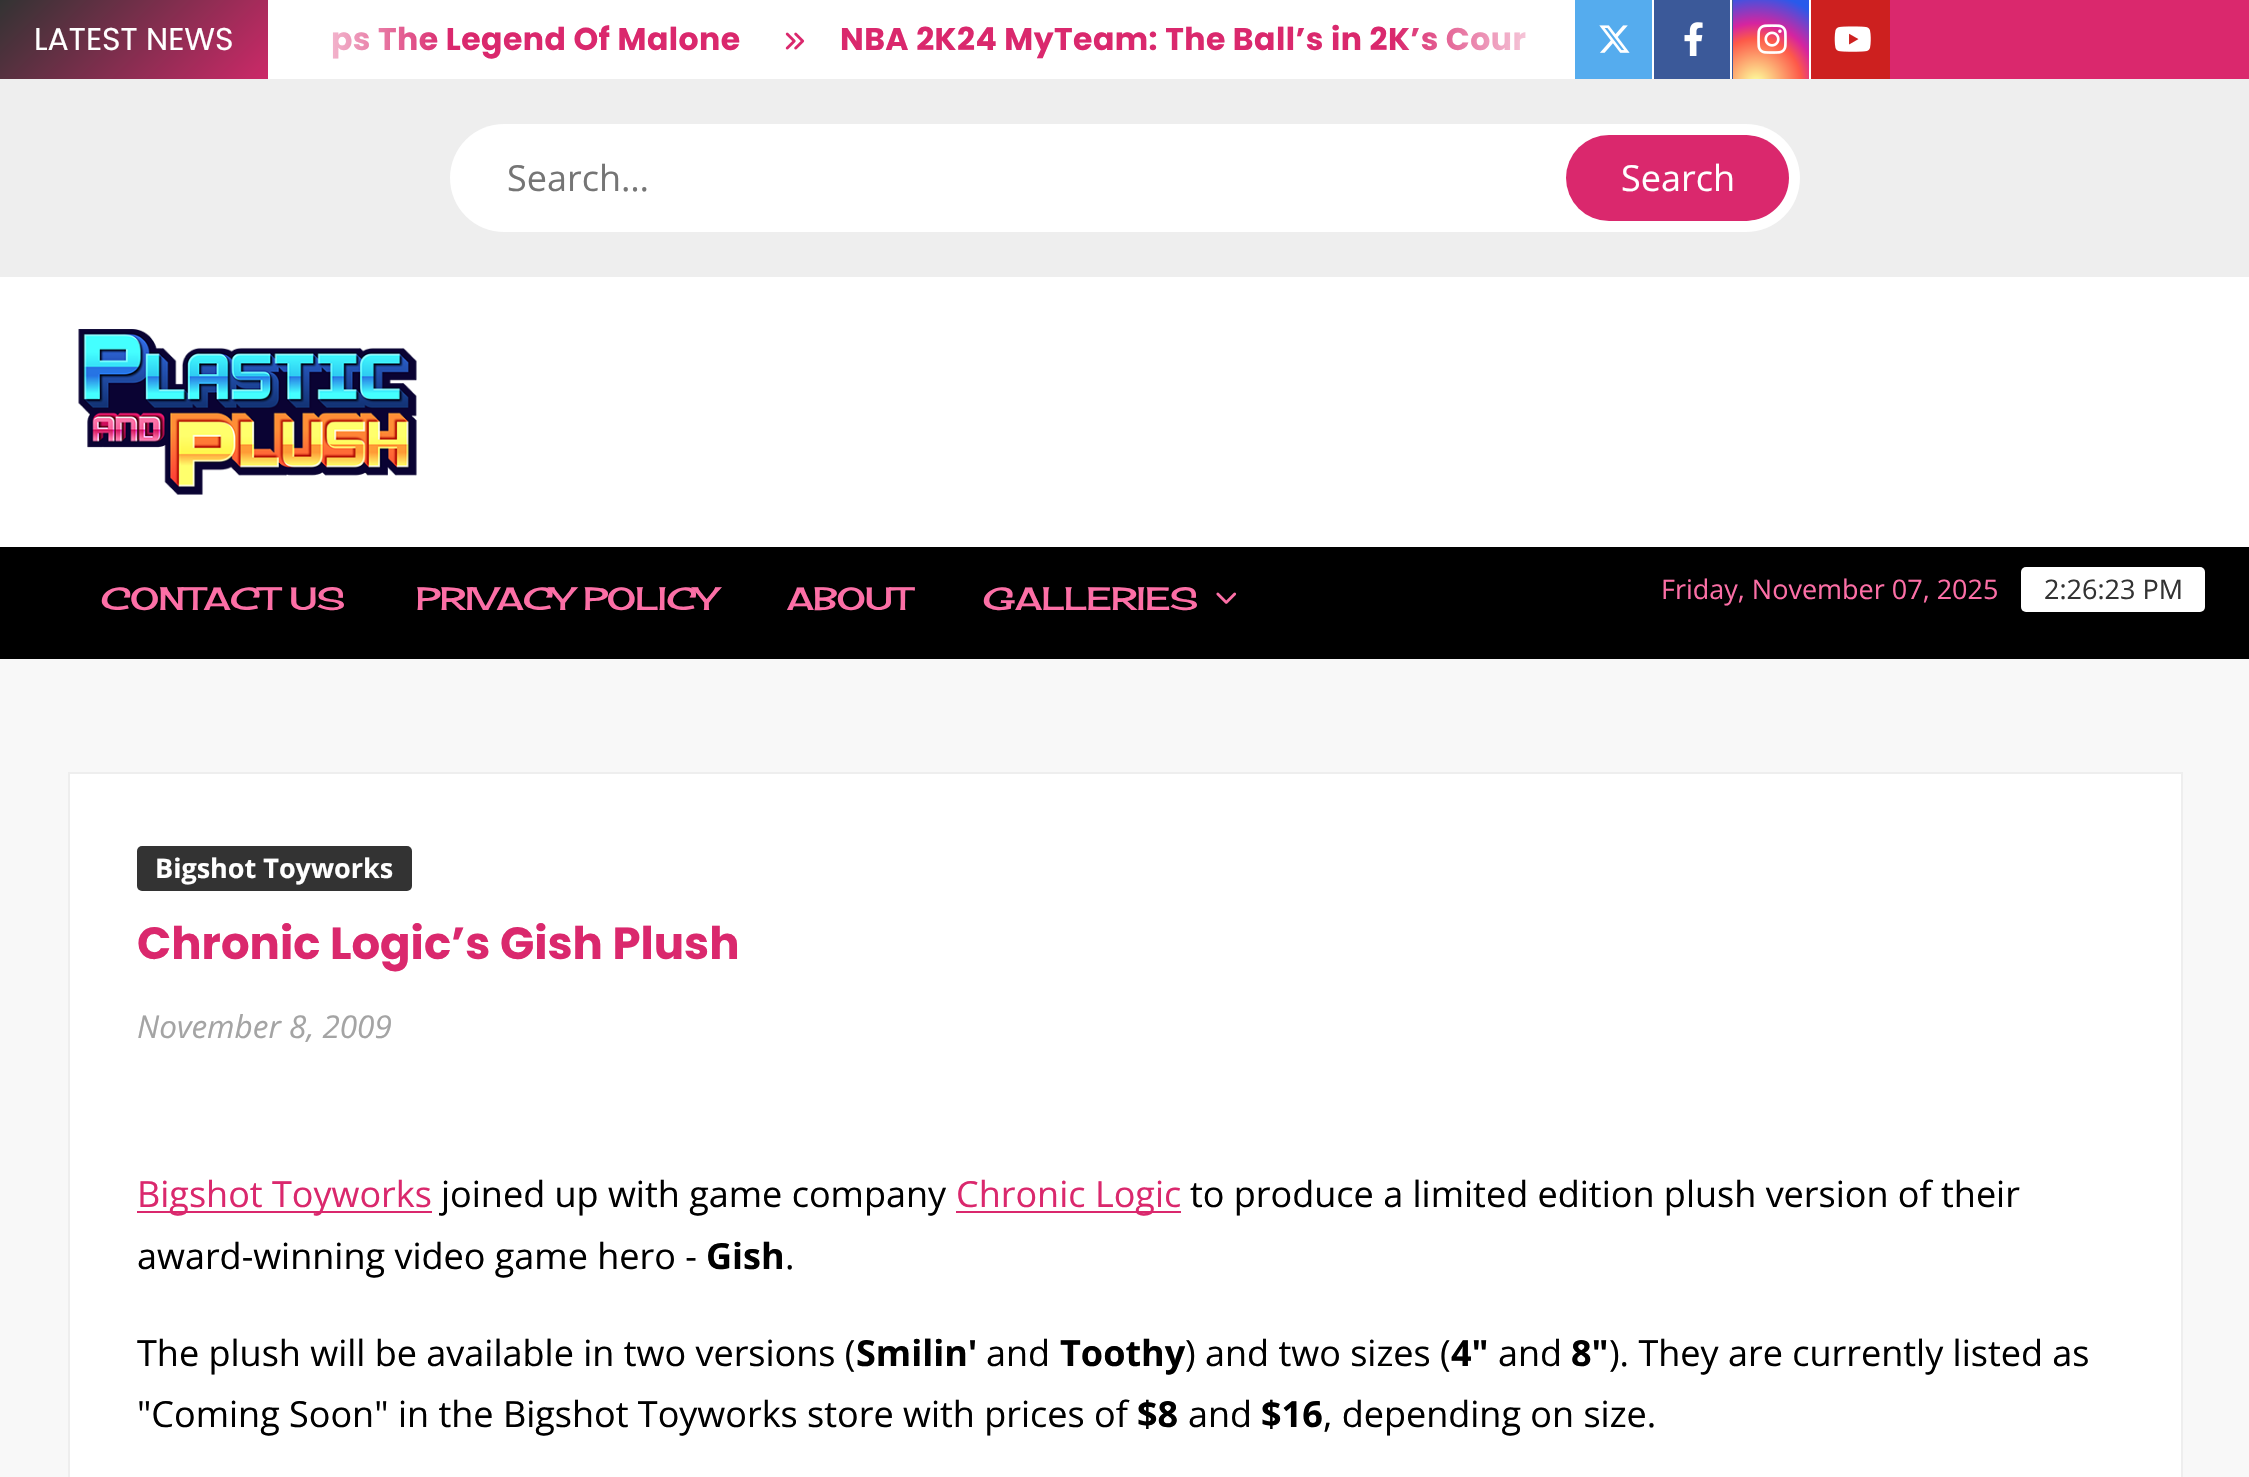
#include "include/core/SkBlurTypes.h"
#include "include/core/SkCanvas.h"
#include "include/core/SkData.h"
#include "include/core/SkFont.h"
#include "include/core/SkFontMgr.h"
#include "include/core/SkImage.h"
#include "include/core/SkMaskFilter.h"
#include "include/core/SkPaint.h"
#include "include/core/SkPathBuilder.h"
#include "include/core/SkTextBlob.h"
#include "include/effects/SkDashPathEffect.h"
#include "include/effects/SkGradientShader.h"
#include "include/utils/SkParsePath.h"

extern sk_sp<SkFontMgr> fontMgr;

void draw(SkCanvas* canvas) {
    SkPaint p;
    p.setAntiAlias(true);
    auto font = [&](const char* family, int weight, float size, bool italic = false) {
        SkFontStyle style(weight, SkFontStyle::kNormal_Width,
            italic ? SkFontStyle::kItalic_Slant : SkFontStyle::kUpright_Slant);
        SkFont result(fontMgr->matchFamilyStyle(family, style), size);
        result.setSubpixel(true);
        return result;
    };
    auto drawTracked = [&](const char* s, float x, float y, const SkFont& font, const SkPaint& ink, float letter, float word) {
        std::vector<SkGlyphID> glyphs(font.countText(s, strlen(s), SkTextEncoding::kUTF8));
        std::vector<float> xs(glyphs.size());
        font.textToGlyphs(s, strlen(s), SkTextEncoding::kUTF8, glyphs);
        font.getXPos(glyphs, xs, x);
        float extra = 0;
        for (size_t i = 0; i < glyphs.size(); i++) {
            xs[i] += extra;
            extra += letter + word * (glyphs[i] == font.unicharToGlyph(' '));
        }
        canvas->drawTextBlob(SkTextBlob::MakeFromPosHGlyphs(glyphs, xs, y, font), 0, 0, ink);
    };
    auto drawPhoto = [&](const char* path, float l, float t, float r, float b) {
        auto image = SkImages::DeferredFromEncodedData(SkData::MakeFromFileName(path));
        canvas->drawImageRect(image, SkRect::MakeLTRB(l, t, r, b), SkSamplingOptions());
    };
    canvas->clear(0xFFF8F8F8);
    p.setColor(0xFFFFFFFF);
    canvas->drawRect(SkRect::MakeLTRB(269, 0, 1574, 79), p);
    auto font1 = font("Poppins", 700, 31.5f);
    p.setColor(0xFFDA286D);
    drawTracked("NBA 2K24 MyTeam: The Ball’s in 2K’s Cour", 840, 50, font1, p, 0.45f, 0);
    {
        const SkColor colors[] = {0x00FFFFFF, 0xFFFFFFFF};
        const float stops[] = {0, 1};
        const SkPoint ends[] = {{1395, 39}, {1575, 39}};
        p.setShader(SkGradientShader::MakeLinear(ends, colors, stops, 2, SkTileMode::kClamp));
        p.setAlpha(255);
    }
    canvas->drawRect(SkRect::MakeLTRB(1399, 0, 1575, 79), p);
    {
        const SkColor colors[] = {0xFFDA286D, 0xFFEEEEEE, 0xFFDA286D, 0xFF333333};
        const float stops[] = {0, 0.33f, 0.67f, 1};
        const SkPoint ends[] = {{823, 327}, {248, -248}};
        p.setShader(SkGradientShader::MakeLinear(ends, colors, stops, 4, SkTileMode::kClamp));
        p.setAlpha(255);
    }
    canvas->drawRect(SkRect::MakeLTRB(0, 0, 268, 79), p);
    auto font2 = font("Poppins", 400, 31.5f);
    p.setShader(nullptr);
    p.setColor(0xFFFFFFFF);
    canvas->drawString("LATEST NEWS", 34, 50, font2, p);
    p.setColor(0xFFDA286D);
    drawTracked("ps The Legend Of Malone", 331, 50, font1, p, 0.45f, 0);
    {
        const SkColor colors[] = {0xFFFFFFFF, 0x00FFFFFF};
        const float stops[] = {0, 1};
        const SkPoint ends[] = {{268, 39}, {448, 39}};
        p.setShader(SkGradientShader::MakeLinear(ends, colors, stops, 2, SkTileMode::kClamp));
        p.setAlpha(255);
    }
    canvas->drawRect(SkRect::MakeLTRB(268, 0, 437, 79), p);
    drawPhoto("media/1.png", 785, 32, 805, 50);
    p.setShader(nullptr);
    p.setColor(0xFFDA286D);
    canvas->drawRect(SkRect::MakeLTRB(1890, 0, 2249, 79), p);
    p.setColor(0xFF55ACEE);
    canvas->drawRect(SkRect::MakeLTRB(1575, 0, 1652, 79), p);
    drawPhoto("media/2.png", 1599, 25, 1630, 53);
    p.setColor(0xFFFFFFFF);
    canvas->drawRect(SkRect::MakeLTRB(1652, 0, 1654, 79), p);
    p.setColor(0xFF3B5999);
    canvas->drawRect(SkRect::MakeLTRB(1654, 0, 1733, 79), p);
    drawPhoto("media/3.png", 1684, 22, 1703, 56);
    p.setColor(0xFFFFFFFF);
    canvas->drawRect(SkRect::MakeLTRB(1730, 0, 1732, 79), p);
    {
        const SkColor colors[] = {0xFFFDF497, 0xFFFDF497, 0xFFFD5949, 0xFFD6249F, 0xFF285AEB};
        const float stops[] = {0, 0.05f, 0.45f, 0.6f, 0.9f};
        p.setShader(SkGradientShader::MakeRadial({1756, 84}, 101, colors, stops, 5, SkTileMode::kClamp));
        p.setAlpha(255);
    }
    canvas->drawRect(SkRect::MakeLTRB(1733, 0, 1809, 79), p);
    drawPhoto("media/4.png", 1757, 24, 1787, 54);
    p.setShader(nullptr);
    p.setColor(0xFFFFFFFF);
    canvas->drawRect(SkRect::MakeLTRB(1809, 0, 1811, 79), p);
    p.setColor(0xFFCD201F);
    canvas->drawRect(SkRect::MakeLTRB(1811, 0, 1890, 79), p);
    drawPhoto("media/5.png", 1834, 26, 1871, 52);
    p.setColor(0xFFEEEEEE);
    canvas->drawRect(SkRect::MakeLTRB(0, 79, 2249, 277), p);
    p.setColor(0xFFFFFFFF);
    canvas->drawRoundRect(SkRect::MakeLTRB(450, 124, 1800, 232), 54, 54, p);
    auto font3 = font("Open Sans", 400, 36);
    p.setColor(0xFF757575);
    canvas->drawString("Search…", 507, 191, font3, p);
    canvas->save();
    canvas->clipPath(SkPathBuilder().moveTo(504, 135).lineTo(1746, 135).cubicTo(1769.5f, 135, 1789, 154.5f, 1789, 178).cubicTo(1789, 201.5f, 1769.5f, 221, 1746, 221).lineTo(504, 221).cubicTo(480.5f, 221, 461, 201.5f, 461, 178).cubicTo(461, 154.5f, 480.5f, 135, 504, 135).close().detach(), true);
    p.setColor(0xFFDA286D);
    canvas->drawRoundRect(SkRect::MakeLTRB(1566, 135, 1791, 221), 43, 43, p);
    canvas->restore();
    p.setColor(0xFFFFFFFF);
    canvas->drawString("Search", 1621, 191, font3, p);
    canvas->drawRect(SkRect::MakeLTRB(0, 277, 2249, 547), p);
    drawPhoto("media/6.png", 78, 329, 417, 495);
    p.setColor(0xFF000000);
    canvas->drawRect(SkRect::MakeLTRB(0, 547, 2249, 659), p);
    auto font4 = font("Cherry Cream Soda", 400, 31.5f);
    p.setColor(0xFFFC6FA6);
    {
        const struct { const char* s; float x, y; } items[] = {
            {"CONTACT US", 101, 610},
            {"PRIVACY POLICY", 416, 610},
            {"ABOUT", 787, 610},
            {"GALLERIES", 983, 610},
        };
        for (auto [s, x, y] : items) {
            canvas->drawString(s, x, y, font4, p);
        }
    }
    drawPhoto("media/7.png", 1216, 592, 1237, 604);
    auto font5 = font("Open Sans", 400, 27);
    canvas->drawString("Friday, November 07, 2025", 1661, 599, font5, p);
    p.setColor(0xFFFFFFFF);
    canvas->drawRoundRect(SkRect::MakeLTRB(2021, 567, 2205, 612), 5, 5, p);
    p.setColor(0xFF333333);
    canvas->drawString("2:26:23 PM", 2044, 599, font5, p);
    p.setColor(0xFFFFFFFF);
    canvas->drawRect(SkRect::MakeLTRB(69, 773, 2182, 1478), p);
    p.setStyle(SkPaint::kStroke_Style);
    p.setStrokeWidth(2);
    p.setColor(0xFFEEEEEE);
    canvas->drawRect(SkRect::MakeLTRB(69, 773, 2182, 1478), p);
    p.setStyle(SkPaint::kFill_Style);
    p.setColor(0xFF333333);
    canvas->drawRoundRect(SkRect::MakeLTRB(137, 846, 412, 891), 5, 5, p);
    auto font6 = font("Open Sans", 700, 27);
    p.setColor(0xFFFFFFFF);
    canvas->drawString("Bigshot Toyworks", 155, 878, font6, p);
    auto font7 = font("Poppins", 700, 45);
    p.setColor(0xFFDA286D);
    canvas->drawString("Chronic Logic’s Gish Plush", 137, 959, font7, p);
    auto font8 = font("Open Sans", 400, 31.5f, true);
    p.setColor(0xFFA4A4A4);
    canvas->drawString("November 8, 2009", 137, 1038, font8, p);
    p.setColor(0xFFDA286D);
    canvas->drawRect(SkRect::MakeLTRB(137, 1211, 432, 1213), p);
    canvas->drawString("Bigshot Toyworks", 137, 1207, font3, p);
    p.setColor(0xFF000000);
    canvas->drawString("joined up with game company", 441, 1207, font3, p);
    p.setColor(0xFFDA286D);
    canvas->drawRect(SkRect::MakeLTRB(956, 1211, 1181, 1213), p);
    canvas->drawString("Chronic Logic", 956, 1207, font3, p);
    p.setColor(0xFF000000);
    canvas->drawString("to produce a limited edition plush version of their", 1190, 1207, font3, p);
    canvas->drawString("award-winning video game hero -", 137, 1269, font3, p);
    auto font9 = font("Open Sans", 700, 36);
    canvas->drawString("Gish", 706, 1269, font9, p);
    canvas->drawString(".", 785, 1269, font3, p);
    canvas->drawString("The plush will be available in two versions (", 137, 1366, font3, p);
    canvas->drawString("Smilin'", 856, 1366, font9, p);
    canvas->drawString("and", 986, 1366, font3, p);
    canvas->drawString("Toothy", 1060, 1366, font9, p);
    canvas->drawString(") and two sizes (", 1185, 1366, font3, p);
    canvas->drawString("4\"", 1451, 1366, font9, p);
    canvas->drawString("and", 1498, 1366, font3, p);
    canvas->drawString("8\"", 1571, 1366, font9, p);
    canvas->drawString("). They are currently listed as", 1609, 1366, font3, p);
    canvas->drawString("\"Coming Soon\" in the Bigshot Toyworks store with prices of", 137, 1427, font3, p);
    canvas->drawString("$8", 1137, 1427, font9, p);
    canvas->drawString("and", 1188, 1427, font3, p);
    canvas->drawString("$16", 1261, 1427, font9, p);
    canvas->drawString(", depending on size.", 1323, 1427, font3, p);
}
